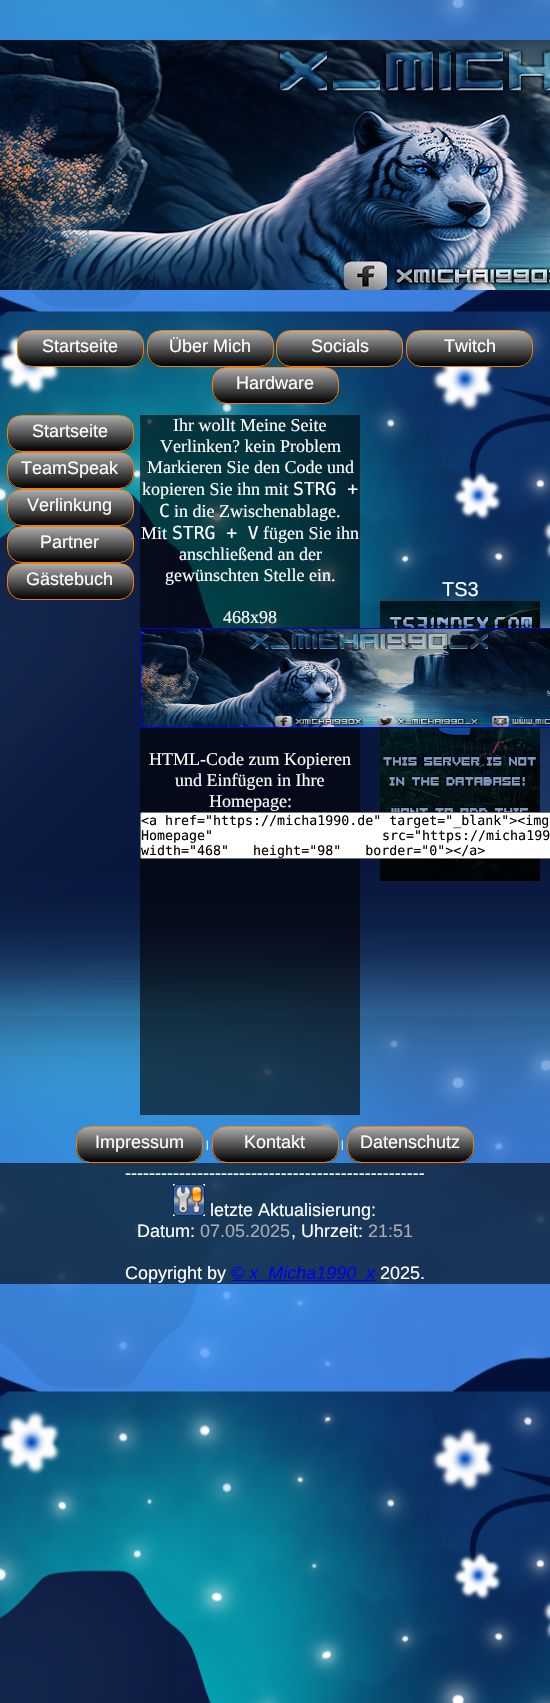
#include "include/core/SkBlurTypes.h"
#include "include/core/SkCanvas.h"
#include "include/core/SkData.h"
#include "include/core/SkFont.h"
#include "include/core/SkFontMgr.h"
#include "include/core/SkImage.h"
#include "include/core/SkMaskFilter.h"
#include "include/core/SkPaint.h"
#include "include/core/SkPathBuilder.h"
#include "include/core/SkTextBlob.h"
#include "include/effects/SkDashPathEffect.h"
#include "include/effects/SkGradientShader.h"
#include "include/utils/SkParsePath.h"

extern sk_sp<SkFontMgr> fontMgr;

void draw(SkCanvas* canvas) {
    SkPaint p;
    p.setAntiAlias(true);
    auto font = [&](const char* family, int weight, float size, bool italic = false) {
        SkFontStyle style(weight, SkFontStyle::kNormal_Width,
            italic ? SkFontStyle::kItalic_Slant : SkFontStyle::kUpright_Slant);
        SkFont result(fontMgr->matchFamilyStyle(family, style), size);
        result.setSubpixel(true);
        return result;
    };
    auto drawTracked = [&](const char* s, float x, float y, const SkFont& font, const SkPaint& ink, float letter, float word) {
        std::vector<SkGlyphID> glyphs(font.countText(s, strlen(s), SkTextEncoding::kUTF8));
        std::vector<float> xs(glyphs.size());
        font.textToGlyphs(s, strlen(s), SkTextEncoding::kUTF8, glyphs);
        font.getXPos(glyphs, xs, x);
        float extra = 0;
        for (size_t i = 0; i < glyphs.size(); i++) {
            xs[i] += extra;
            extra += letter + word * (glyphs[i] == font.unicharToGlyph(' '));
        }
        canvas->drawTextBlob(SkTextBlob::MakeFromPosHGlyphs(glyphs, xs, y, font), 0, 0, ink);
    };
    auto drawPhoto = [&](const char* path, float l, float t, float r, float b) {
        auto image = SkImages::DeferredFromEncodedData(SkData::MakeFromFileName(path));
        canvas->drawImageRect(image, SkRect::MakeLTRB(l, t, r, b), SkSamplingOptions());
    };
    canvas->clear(0xFFFFFFFF);
    drawPhoto("media/1.png", 0, 0, 550, 1703);
    drawPhoto("media/2.png", 0, 40, 550, 290);
    canvas->save();
    canvas->clipPath(SkPathBuilder().moveTo(32, 330).lineTo(129, 330).cubicTo(137.5f, 330, 144, 336.5f, 144, 345).lineTo(144, 352).cubicTo(144, 360.5f, 137.5f, 367, 129, 367).lineTo(32, 367).cubicTo(23.5f, 367, 17, 360.5f, 17, 352).lineTo(17, 345).cubicTo(17, 336.5f, 23.5f, 330, 32, 330).close().detach(), true);
    {
        const SkColor colors[] = {0xFFACACAC, 0xFF000000};
        const float stops[] = {0, 1};
        const SkPoint ends[] = {{81, 331}, {81, 366}};
        p.setShader(SkGradientShader::MakeLinear(ends, colors, stops, 2, SkTileMode::kClamp));
        p.setAlpha(255);
    }
    canvas->drawRect(SkRect::MakeLTRB(17, 331, 144, 366), p);
    canvas->restore();
    p.setStyle(SkPaint::kStroke_Style);
    p.setStrokeWidth(1);
    p.setShader(nullptr);
    p.setColor(0xFFF57C00);
    canvas->drawRoundRect(SkRect::MakeLTRB(17.5f, 330.5f, 143.5f, 366.5f), 14.5f, 14.5f, p);
    auto font1 = font("Liberation Sans", 400, 18);
    p.setStyle(SkPaint::kFill_Style);
    p.setColor(0xFFFFFFFF);
    canvas->drawString("Startseite", 42, 352, font1, p);
    canvas->save();
    canvas->clipPath(SkPathBuilder().moveTo(162, 330).lineTo(259, 330).cubicTo(267.5f, 330, 274, 336.5f, 274, 345).lineTo(274, 352).cubicTo(274, 360.5f, 267.5f, 367, 259, 367).lineTo(162, 367).cubicTo(153.5f, 367, 147, 360.5f, 147, 352).lineTo(147, 345).cubicTo(147, 336.5f, 153.5f, 330, 162, 330).close().detach(), true);
    {
        const SkColor colors[] = {0xFFACACAC, 0xFF000000};
        const float stops[] = {0, 1};
        const SkPoint ends[] = {{211, 331}, {211, 366}};
        p.setShader(SkGradientShader::MakeLinear(ends, colors, stops, 2, SkTileMode::kClamp));
        p.setAlpha(255);
    }
    canvas->drawRect(SkRect::MakeLTRB(147, 331, 274, 366), p);
    canvas->restore();
    p.setStyle(SkPaint::kStroke_Style);
    p.setShader(nullptr);
    p.setColor(0xFFF57C00);
    canvas->drawRoundRect(SkRect::MakeLTRB(147.5f, 330.5f, 273.5f, 366.5f), 14.5f, 14.5f, p);
    p.setStyle(SkPaint::kFill_Style);
    p.setColor(0xFFFFFFFF);
    canvas->drawString("Über Mich", 169, 352, font1, p);
    canvas->save();
    canvas->clipPath(SkPathBuilder().moveTo(291, 330).lineTo(388, 330).cubicTo(396.5f, 330, 403, 336.5f, 403, 345).lineTo(403, 352).cubicTo(403, 360.5f, 396.5f, 367, 388, 367).lineTo(291, 367).cubicTo(282.5f, 367, 276, 360.5f, 276, 352).lineTo(276, 345).cubicTo(276, 336.5f, 282.5f, 330, 291, 330).close().detach(), true);
    {
        const SkColor colors[] = {0xFFACACAC, 0xFF000000};
        const float stops[] = {0, 1};
        const SkPoint ends[] = {{340, 331}, {340, 366}};
        p.setShader(SkGradientShader::MakeLinear(ends, colors, stops, 2, SkTileMode::kClamp));
        p.setAlpha(255);
    }
    canvas->drawRect(SkRect::MakeLTRB(276, 331, 403, 366), p);
    canvas->restore();
    p.setStyle(SkPaint::kStroke_Style);
    p.setShader(nullptr);
    p.setColor(0xFFF57C00);
    canvas->drawRoundRect(SkRect::MakeLTRB(276.5f, 330.5f, 402.5f, 366.5f), 14.5f, 14.5f, p);
    p.setStyle(SkPaint::kFill_Style);
    p.setColor(0xFFFFFFFF);
    canvas->drawString("Socials", 311, 352, font1, p);
    canvas->save();
    canvas->clipPath(SkPathBuilder().moveTo(421, 330).lineTo(518, 330).cubicTo(526.5f, 330, 533, 336.5f, 533, 345).lineTo(533, 352).cubicTo(533, 360.5f, 526.5f, 367, 518, 367).lineTo(421, 367).cubicTo(412.5f, 367, 406, 360.5f, 406, 352).lineTo(406, 345).cubicTo(406, 336.5f, 412.5f, 330, 421, 330).close().detach(), true);
    {
        const SkColor colors[] = {0xFFACACAC, 0xFF000000};
        const float stops[] = {0, 1};
        const SkPoint ends[] = {{470, 331}, {470, 366}};
        p.setShader(SkGradientShader::MakeLinear(ends, colors, stops, 2, SkTileMode::kClamp));
        p.setAlpha(255);
    }
    canvas->drawRect(SkRect::MakeLTRB(406, 331, 533, 366), p);
    canvas->restore();
    p.setStyle(SkPaint::kStroke_Style);
    p.setShader(nullptr);
    p.setColor(0xFFF57C00);
    canvas->drawRoundRect(SkRect::MakeLTRB(406.5f, 330.5f, 532.5f, 366.5f), 14.5f, 14.5f, p);
    p.setStyle(SkPaint::kFill_Style);
    p.setColor(0xFFFFFFFF);
    canvas->drawString("Twitch", 444, 352, font1, p);
    canvas->save();
    canvas->clipPath(SkPathBuilder().moveTo(227, 367).lineTo(324, 367).cubicTo(332.5f, 367, 339, 373.5f, 339, 382).lineTo(339, 389).cubicTo(339, 397.5f, 332.5f, 404, 324, 404).lineTo(227, 404).cubicTo(218.5f, 404, 212, 397.5f, 212, 389).lineTo(212, 382).cubicTo(212, 373.5f, 218.5f, 367, 227, 367).close().detach(), true);
    {
        const SkColor colors[] = {0xFFACACAC, 0xFF000000};
        const float stops[] = {0, 1};
        const SkPoint ends[] = {{276, 368}, {276, 403}};
        p.setShader(SkGradientShader::MakeLinear(ends, colors, stops, 2, SkTileMode::kClamp));
        p.setAlpha(255);
    }
    canvas->drawRect(SkRect::MakeLTRB(212, 368, 339, 403), p);
    canvas->restore();
    p.setStyle(SkPaint::kStroke_Style);
    p.setShader(nullptr);
    p.setColor(0xFFF57C00);
    canvas->drawRoundRect(SkRect::MakeLTRB(212.5f, 367.5f, 338.5f, 403.5f), 14.5f, 14.5f, p);
    p.setStyle(SkPaint::kFill_Style);
    p.setColor(0xFFFFFFFF);
    canvas->drawString("Hardware", 236, 389, font1, p);
    canvas->save();
    canvas->clipPath(SkPathBuilder().moveTo(22, 415).lineTo(119, 415).cubicTo(127.5f, 415, 134, 421.5f, 134, 430).lineTo(134, 437).cubicTo(134, 445.5f, 127.5f, 452, 119, 452).lineTo(22, 452).cubicTo(13.5f, 452, 7, 445.5f, 7, 437).lineTo(7, 430).cubicTo(7, 421.5f, 13.5f, 415, 22, 415).close().detach(), true);
    {
        const SkColor colors[] = {0xFFACACAC, 0xFF000000};
        const float stops[] = {0, 1};
        const SkPoint ends[] = {{71, 416}, {71, 451}};
        p.setShader(SkGradientShader::MakeLinear(ends, colors, stops, 2, SkTileMode::kClamp));
        p.setAlpha(255);
    }
    canvas->drawRect(SkRect::MakeLTRB(7, 416, 134, 451), p);
    canvas->restore();
    p.setStyle(SkPaint::kStroke_Style);
    p.setShader(nullptr);
    p.setColor(0xFFF57C00);
    canvas->drawRoundRect(SkRect::MakeLTRB(7.5f, 415.5f, 133.5f, 451.5f), 14.5f, 14.5f, p);
    p.setStyle(SkPaint::kFill_Style);
    p.setColor(0xFFFFFFFF);
    canvas->drawString("Startseite", 32, 437, font1, p);
    canvas->save();
    canvas->clipPath(SkPathBuilder().moveTo(22, 452).lineTo(119, 452).cubicTo(127.5f, 452, 134, 458.5f, 134, 467).lineTo(134, 474).cubicTo(134, 482.5f, 127.5f, 489, 119, 489).lineTo(22, 489).cubicTo(13.5f, 489, 7, 482.5f, 7, 474).lineTo(7, 467).cubicTo(7, 458.5f, 13.5f, 452, 22, 452).close().detach(), true);
    {
        const SkColor colors[] = {0xFFACACAC, 0xFF000000};
        const float stops[] = {0, 1};
        const SkPoint ends[] = {{71, 453}, {71, 488}};
        p.setShader(SkGradientShader::MakeLinear(ends, colors, stops, 2, SkTileMode::kClamp));
        p.setAlpha(255);
    }
    canvas->drawRect(SkRect::MakeLTRB(7, 453, 134, 488), p);
    canvas->restore();
    p.setStyle(SkPaint::kStroke_Style);
    p.setShader(nullptr);
    p.setColor(0xFFF57C00);
    canvas->drawRoundRect(SkRect::MakeLTRB(7.5f, 452.5f, 133.5f, 488.5f), 14.5f, 14.5f, p);
    p.setStyle(SkPaint::kFill_Style);
    p.setColor(0xFFFFFFFF);
    canvas->drawString("TeamSpeak", 21, 474, font1, p);
    canvas->save();
    canvas->clipPath(SkPathBuilder().moveTo(22, 489).lineTo(119, 489).cubicTo(127.5f, 489, 134, 495.5f, 134, 504).lineTo(134, 511).cubicTo(134, 519.5f, 127.5f, 526, 119, 526).lineTo(22, 526).cubicTo(13.5f, 526, 7, 519.5f, 7, 511).lineTo(7, 504).cubicTo(7, 495.5f, 13.5f, 489, 22, 489).close().detach(), true);
    {
        const SkColor colors[] = {0xFFACACAC, 0xFF000000};
        const float stops[] = {0, 1};
        const SkPoint ends[] = {{71, 490}, {71, 525}};
        p.setShader(SkGradientShader::MakeLinear(ends, colors, stops, 2, SkTileMode::kClamp));
        p.setAlpha(255);
    }
    canvas->drawRect(SkRect::MakeLTRB(7, 490, 134, 525), p);
    canvas->restore();
    p.setStyle(SkPaint::kStroke_Style);
    p.setShader(nullptr);
    p.setColor(0xFFF57C00);
    canvas->drawRoundRect(SkRect::MakeLTRB(7.5f, 489.5f, 133.5f, 525.5f), 14.5f, 14.5f, p);
    p.setStyle(SkPaint::kFill_Style);
    p.setColor(0xFFFFFFFF);
    canvas->drawString("Verlinkung", 27, 511, font1, p);
    canvas->save();
    canvas->clipPath(SkPathBuilder().moveTo(22, 526).lineTo(119, 526).cubicTo(127.5f, 526, 134, 532.5f, 134, 541).lineTo(134, 548).cubicTo(134, 556.5f, 127.5f, 563, 119, 563).lineTo(22, 563).cubicTo(13.5f, 563, 7, 556.5f, 7, 548).lineTo(7, 541).cubicTo(7, 532.5f, 13.5f, 526, 22, 526).close().detach(), true);
    {
        const SkColor colors[] = {0xFFACACAC, 0xFF000000};
        const float stops[] = {0, 1};
        const SkPoint ends[] = {{71, 527}, {71, 562}};
        p.setShader(SkGradientShader::MakeLinear(ends, colors, stops, 2, SkTileMode::kClamp));
        p.setAlpha(255);
    }
    canvas->drawRect(SkRect::MakeLTRB(7, 527, 134, 562), p);
    canvas->restore();
    p.setStyle(SkPaint::kStroke_Style);
    p.setShader(nullptr);
    p.setColor(0xFFF57C00);
    canvas->drawRoundRect(SkRect::MakeLTRB(7.5f, 526.5f, 133.5f, 562.5f), 14.5f, 14.5f, p);
    p.setStyle(SkPaint::kFill_Style);
    p.setColor(0xFFFFFFFF);
    canvas->drawString("Partner", 40, 548, font1, p);
    canvas->save();
    canvas->clipPath(SkPathBuilder().moveTo(22, 563).lineTo(119, 563).cubicTo(127.5f, 563, 134, 569.5f, 134, 578).lineTo(134, 585).cubicTo(134, 593.5f, 127.5f, 600, 119, 600).lineTo(22, 600).cubicTo(13.5f, 600, 7, 593.5f, 7, 585).lineTo(7, 578).cubicTo(7, 569.5f, 13.5f, 563, 22, 563).close().detach(), true);
    {
        const SkColor colors[] = {0xFFACACAC, 0xFF000000};
        const float stops[] = {0, 1};
        const SkPoint ends[] = {{71, 564}, {71, 599}};
        p.setShader(SkGradientShader::MakeLinear(ends, colors, stops, 2, SkTileMode::kClamp));
        p.setAlpha(255);
    }
    canvas->drawRect(SkRect::MakeLTRB(7, 564, 134, 599), p);
    canvas->restore();
    p.setStyle(SkPaint::kStroke_Style);
    p.setShader(nullptr);
    p.setColor(0xFFF57C00);
    canvas->drawRoundRect(SkRect::MakeLTRB(7.5f, 563.5f, 133.5f, 599.5f), 14.5f, 14.5f, p);
    p.setStyle(SkPaint::kFill_Style);
    p.setColor(0xFFFFFFFF);
    canvas->drawString("Gästebuch", 26, 585, font1, p);
    p.setColor(0x99000000);
    canvas->drawRect(SkRect::MakeLTRB(140, 415, 360, 1115), p);
    auto font2 = font("Liberation Serif", 400, 18);
    p.setColor(0xFFFFFFFF);
    {
        const struct { const char* s; float x, y; } items[] = {
            {"Ihr wollt Meine Seite", 173, 431},
            {"Verlinken? kein Problem", 160, 452},
            {"Markieren Sie den Code und", 147, 473},
            {"kopieren Sie ihn mit", 142, 495},
        };
        for (auto [s, x, y] : items) {
            canvas->drawString(s, x, y, font2, p);
        }
    }
    auto font3 = font("DejaVu Sans Mono", 400, 18);
    canvas->drawString("STRG +", 293, 495, font3, p);
    canvas->drawString("C", 159, 517, font3, p);
    canvas->drawString("in die Zwischenablage.", 174, 517, font2, p);
    canvas->drawString("Mit", 141, 539, font2, p);
    canvas->drawString("STRG + V", 172, 539, font3, p);
    {
        const struct { const char* s; float x, y; } items[] = {
            {"fügen Sie ihn", 263, 539},
            {"anschließend an der", 179, 560},
            {"gewünschten Stelle ein.", 165, 581},
            {"468x98", 223, 623},
        };
        for (auto [s, x, y] : items) {
            canvas->drawString(s, x, y, font2, p);
        }
    }
    drawPhoto("media/4.png", 380, 601, 540, 881);
    p.setStyle(SkPaint::kStroke_Style);
    p.setColor(0xFF0000EE);
    canvas->drawRect(SkRect::MakeLTRB(140.5f, 628.5f, 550.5f, 727.5f), p);
    drawPhoto("media/3.png", 141, 629, 550, 727);
    p.setStyle(SkPaint::kFill_Style);
    p.setColor(0xFFFFFFFF);
    {
        const struct { const char* s; float x, y; } items[] = {
            {"HTML-Code zum Kopieren", 149, 765},
            {"und Einfügen in Ihre", 175, 786},
            {"Homepage:", 209, 807},
        };
        for (auto [s, x, y] : items) {
            canvas->drawString(s, x, y, font2, p);
        }
    }
    canvas->drawRoundRect(SkRect::MakeLTRB(140.5f, 812.5f, 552.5f, 858.5f), 1.5f, 1.5f, p);
    p.setStyle(SkPaint::kStroke_Style);
    p.setColor(0xFF767676);
    canvas->drawRoundRect(SkRect::MakeLTRB(140.5f, 812.5f, 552.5f, 858.5f), 1.5f, 1.5f, p);
    auto font4 = font("DejaVu Sans Mono", 400, 13.3f);
    p.setStyle(SkPaint::kFill_Style);
    p.setColor(0xFF000000);
    {
        const struct { const char* s; float x, y; } items[] = {
            {"<a href=\"https://micha1990.de\" target=\"_blank\"><img", 141, 825},
            {"Homepage\"", 141, 840},
            {"src=\"https://micha199", 382, 840},
        };
        for (auto [s, x, y] : items) {
            canvas->drawString(s, x, y, font4, p);
        }
    }
    drawTracked("width=\"468\" height=\"98\" border=\"0\"></a>", 141, 855, font4, p, 0, 16);
    auto font5 = font("Liberation Sans", 400, 20);
    p.setColor(0xFFFFFFFF);
    canvas->drawString("TS3", 442, 596, font5, p);
    canvas->save();
    canvas->clipPath(SkPathBuilder().moveTo(91, 1126).lineTo(188, 1126).cubicTo(196.5f, 1126, 203, 1132.5f, 203, 1141).lineTo(203, 1148).cubicTo(203, 1156.5f, 196.5f, 1163, 188, 1163).lineTo(91, 1163).cubicTo(82.5f, 1163, 76, 1156.5f, 76, 1148).lineTo(76, 1141).cubicTo(76, 1132.5f, 82.5f, 1126, 91, 1126).close().detach(), true);
    {
        const SkColor colors[] = {0xFFACACAC, 0xFF000000};
        const float stops[] = {0, 1};
        const SkPoint ends[] = {{140, 1127}, {140, 1162}};
        p.setShader(SkGradientShader::MakeLinear(ends, colors, stops, 2, SkTileMode::kClamp));
        p.setAlpha(255);
    }
    canvas->drawRect(SkRect::MakeLTRB(76, 1127, 203, 1162), p);
    canvas->restore();
    p.setStyle(SkPaint::kStroke_Style);
    p.setShader(nullptr);
    p.setColor(0xFFF57C00);
    canvas->drawRoundRect(SkRect::MakeLTRB(76.5f, 1126.5f, 202.5f, 1162.5f), 14.5f, 14.5f, p);
    p.setStyle(SkPaint::kFill_Style);
    p.setColor(0xFFFFFFFF);
    canvas->drawString("Impressum", 95, 1148, font1, p);
    auto font6 = font("Liberation Sans", 400, 10);
    canvas->drawString("|", 206, 1148, font6, p);
    canvas->save();
    canvas->clipPath(SkPathBuilder().moveTo(227, 1126).lineTo(324, 1126).cubicTo(332.5f, 1126, 339, 1132.5f, 339, 1141).lineTo(339, 1148).cubicTo(339, 1156.5f, 332.5f, 1163, 324, 1163).lineTo(227, 1163).cubicTo(218.5f, 1163, 212, 1156.5f, 212, 1148).lineTo(212, 1141).cubicTo(212, 1132.5f, 218.5f, 1126, 227, 1126).close().detach(), true);
    {
        const SkColor colors[] = {0xFFACACAC, 0xFF000000};
        const float stops[] = {0, 1};
        const SkPoint ends[] = {{276, 1127}, {276, 1162}};
        p.setShader(SkGradientShader::MakeLinear(ends, colors, stops, 2, SkTileMode::kClamp));
        p.setAlpha(255);
    }
    canvas->drawRect(SkRect::MakeLTRB(212, 1127, 339, 1162), p);
    canvas->restore();
    p.setStyle(SkPaint::kStroke_Style);
    p.setShader(nullptr);
    p.setColor(0xFFF57C00);
    canvas->drawRoundRect(SkRect::MakeLTRB(212.5f, 1126.5f, 338.5f, 1162.5f), 14.5f, 14.5f, p);
    p.setStyle(SkPaint::kFill_Style);
    p.setColor(0xFFFFFFFF);
    canvas->drawString("Kontakt", 244, 1148, font1, p);
    canvas->drawString("|", 341, 1148, font6, p);
    canvas->save();
    canvas->clipPath(SkPathBuilder().moveTo(362, 1126).lineTo(459, 1126).cubicTo(467.5f, 1126, 474, 1132.5f, 474, 1141).lineTo(474, 1148).cubicTo(474, 1156.5f, 467.5f, 1163, 459, 1163).lineTo(362, 1163).cubicTo(353.5f, 1163, 347, 1156.5f, 347, 1148).lineTo(347, 1141).cubicTo(347, 1132.5f, 353.5f, 1126, 362, 1126).close().detach(), true);
    {
        const SkColor colors[] = {0xFFACACAC, 0xFF000000};
        const float stops[] = {0, 1};
        const SkPoint ends[] = {{411, 1127}, {411, 1162}};
        p.setShader(SkGradientShader::MakeLinear(ends, colors, stops, 2, SkTileMode::kClamp));
        p.setAlpha(255);
    }
    canvas->drawRect(SkRect::MakeLTRB(347, 1127, 474, 1162), p);
    canvas->restore();
    p.setStyle(SkPaint::kStroke_Style);
    p.setShader(nullptr);
    p.setColor(0xFFF57C00);
    canvas->drawRoundRect(SkRect::MakeLTRB(347.5f, 1126.5f, 473.5f, 1162.5f), 14.5f, 14.5f, p);
    p.setStyle(SkPaint::kFill_Style);
    p.setColor(0xFFFFFFFF);
    canvas->drawString("Datenschutz", 360, 1148, font1, p);
    p.setColor(0x99000000);
    canvas->drawRect(SkRect::MakeLTRB(0, 1163, 550, 1284), p);
    p.setColor(0xFFFFFFFF);
    canvas->drawString("--------------------------------------------------", 125, 1179, font1, p);
    drawPhoto("media/5.png", 173, 1184, 205, 1216);
    canvas->drawString("letzte Aktualisierung:", 210, 1216, font1, p);
    canvas->drawString("Datum:", 137, 1237, font1, p);
    p.setColor(0xFFACACAC);
    canvas->drawString("07.05.2025", 200, 1237, font1, p);
    p.setColor(0xFFFFFFFF);
    canvas->drawString(", Uhrzeit:", 291, 1237, font1, p);
    p.setColor(0xFFACACAC);
    canvas->drawString("21:51", 368, 1237, font1, p);
    p.setColor(0xFFFFFFFF);
    canvas->drawString("Copyright by", 125, 1279, font1, p);
    p.setColor(0xFF0000EE);
    canvas->drawRect(SkRect::MakeLTRB(231, 1280, 375, 1281), p);
    auto font7 = font("Liberation Sans", 400, 18, true);
    canvas->drawString("© x_Micha1990_x", 231, 1279, font7, p);
    p.setColor(0xFFFFFFFF);
    canvas->drawString("2025.", 380, 1279, font1, p);
}
